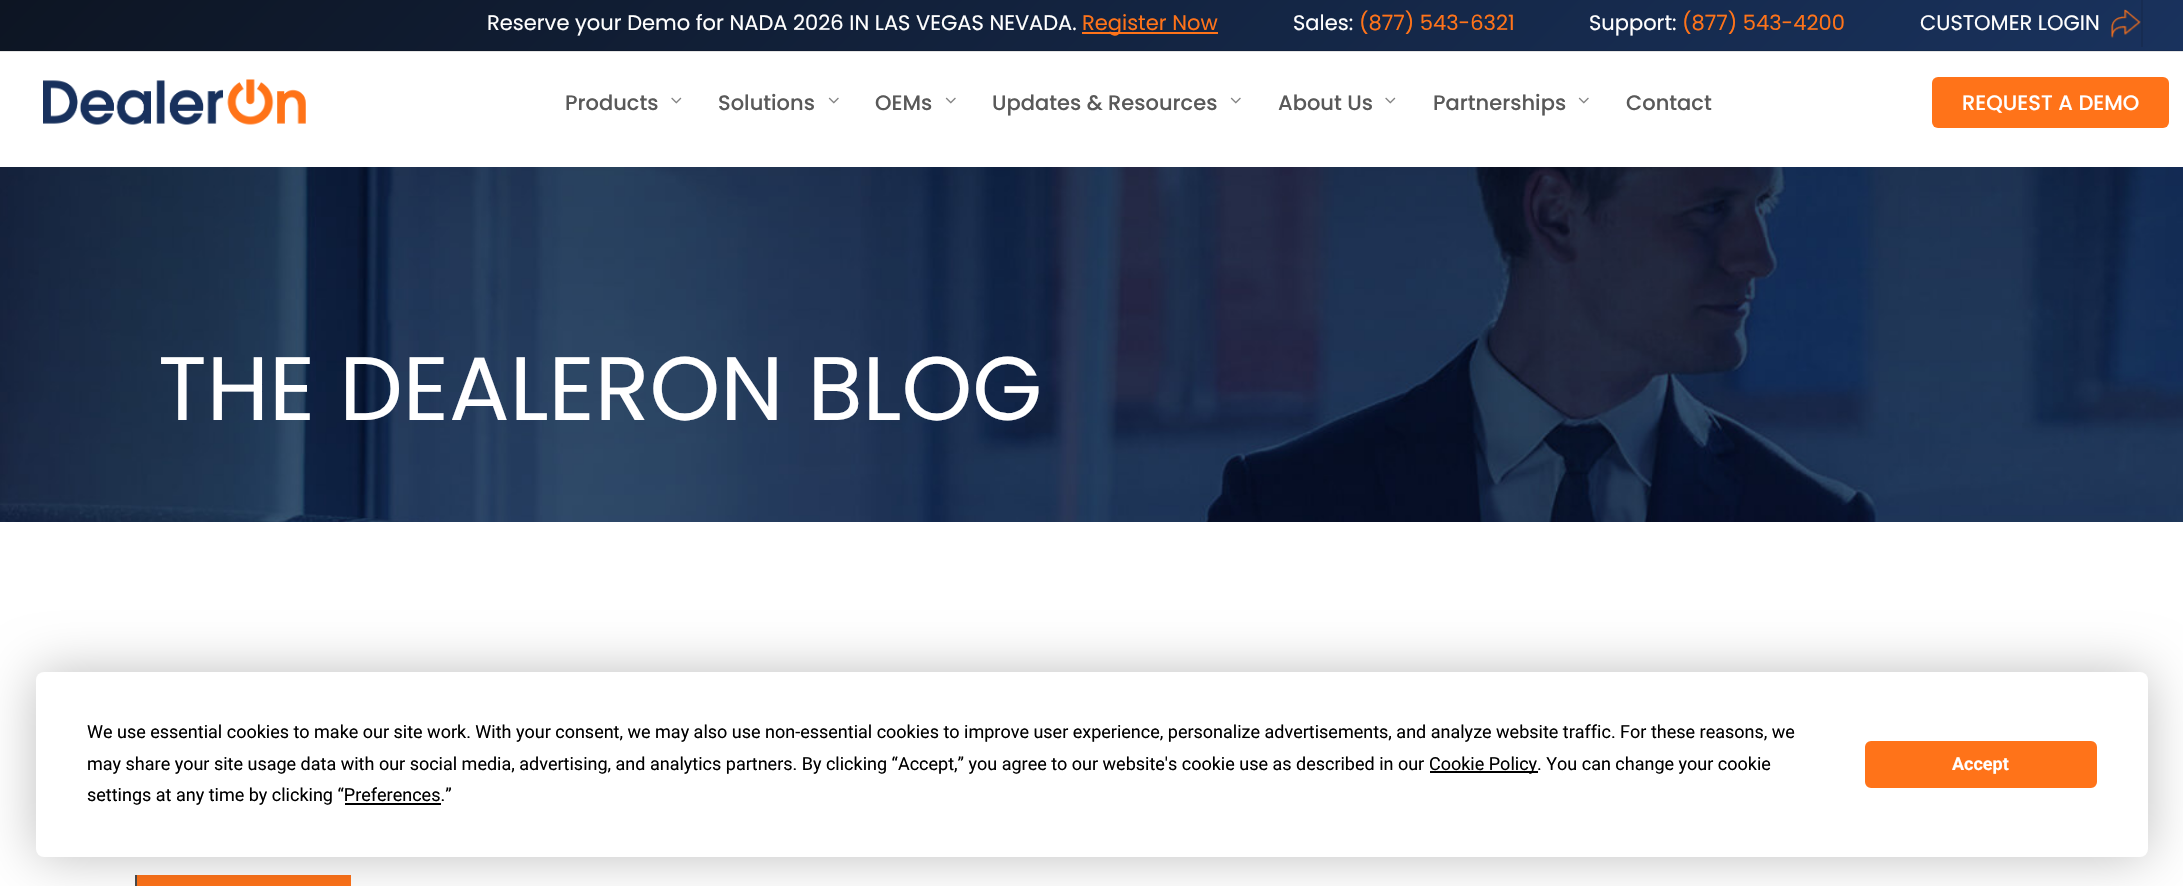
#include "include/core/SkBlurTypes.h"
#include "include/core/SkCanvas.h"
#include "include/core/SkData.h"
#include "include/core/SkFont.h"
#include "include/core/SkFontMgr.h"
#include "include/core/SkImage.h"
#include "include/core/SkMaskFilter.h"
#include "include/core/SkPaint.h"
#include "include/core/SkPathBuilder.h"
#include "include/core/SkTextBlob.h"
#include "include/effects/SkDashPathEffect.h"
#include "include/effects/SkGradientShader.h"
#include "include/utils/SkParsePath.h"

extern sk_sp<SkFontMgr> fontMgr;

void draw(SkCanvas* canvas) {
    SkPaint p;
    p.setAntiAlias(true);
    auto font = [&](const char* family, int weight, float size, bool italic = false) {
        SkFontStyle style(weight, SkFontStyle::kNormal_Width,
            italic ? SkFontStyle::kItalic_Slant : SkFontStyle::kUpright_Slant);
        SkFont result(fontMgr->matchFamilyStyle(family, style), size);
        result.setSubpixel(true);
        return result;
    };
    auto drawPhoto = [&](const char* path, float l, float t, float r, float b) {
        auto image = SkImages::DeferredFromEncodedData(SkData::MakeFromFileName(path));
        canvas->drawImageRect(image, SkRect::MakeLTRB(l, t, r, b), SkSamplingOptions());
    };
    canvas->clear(0xFFFFFFFF);
    {
        const SkColor colors[] = {0xFF0D1523, 0xFF19325D};
        const float stops[] = {0, 1};
        const SkPoint ends[] = {{534, -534}, {1650, 583}};
        p.setShader(SkGradientShader::MakeLinear(ends, colors, stops, 2, SkTileMode::kClamp));
        p.setAlpha(255);
    }
    canvas->drawRect(SkRect::MakeLTRB(0, 0, 2183, 50), p);
    {
        const SkColor colors[] = {0xFF0D1523, 0xFF19325D};
        const float stops[] = {0, 1};
        const SkPoint ends[] = {{534, -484}, {1650, 633}};
        p.setShader(SkGradientShader::MakeLinear(ends, colors, stops, 2, SkTileMode::kClamp));
        p.setAlpha(255);
    }
    canvas->drawRect(SkRect::MakeLTRB(0, 50, 2183, 51), p);
    p.setShader(nullptr);
    p.setColor(0x1A000000);
    canvas->drawRect(SkRect::MakeLTRB(0, 50, 2183, 52), p);
    auto font1 = font("Poppins", 400, 21);
    p.setColor(0xFFFFFFFF);
    canvas->drawString("Reserve your Demo for NADA 2026 IN LAS VEGAS NEVADA.", 487, 30, font1, p);
    p.setColor(0xFFFF7319);
    canvas->drawRect(SkRect::MakeLTRB(1082, 32, 1218, 34), p);
    canvas->drawString("Register Now", 1082, 30, font1, p);
    p.setColor(0xFFFFFFFF);
    canvas->drawString("Sales:", 1293, 30, font1, p);
    p.setColor(0xFFFF7319);
    canvas->drawString("(877) 543-6321", 1359, 30, font1, p);
    p.setColor(0xFFFFFFFF);
    canvas->drawString("Support:", 1589, 30, font1, p);
    p.setColor(0xFFFF7319);
    canvas->drawString("(877) 543-4200", 1682, 30, font1, p);
    p.setColor(0xFF172C52);
    canvas->drawRect(SkRect::MakeLTRB(2141, 0, 2143, 47), p);
    drawPhoto("media/1.png", 2111, 9, 2141, 38);
    p.setColor(0xFFFFFFFF);
    canvas->drawString("CUSTOMER LOGIN", 1920, 30, font1, p);
    drawPhoto("media/2.png", 43, 79, 306, 125);
    auto font2 = font("Poppins", 500, 21);
    p.setColor(0xFF595959);
    canvas->drawString("Products", 565, 110, font2, p);
    drawPhoto("media/3.png", 671, 97, 682, 104);
    canvas->drawString("Solutions", 718, 110, font2, p);
    drawPhoto("media/4.png", 828, 97, 839, 104);
    canvas->drawString("OEMs", 875, 110, font2, p);
    drawPhoto("media/4.png", 945, 97, 956, 104);
    canvas->drawString("Updates & Resources", 992, 110, font2, p);
    drawPhoto("media/4.png", 1230, 97, 1241, 104);
    canvas->drawString("About Us", 1278, 110, font2, p);
    drawPhoto("media/3.png", 1385, 97, 1396, 104);
    canvas->drawString("Partnerships", 1433, 110, font2, p);
    drawPhoto("media/4.png", 1578, 97, 1589, 104);
    canvas->drawString("Contact", 1626, 110, font2, p);
    p.setColor(0xFFFF7319);
    canvas->drawRoundRect(SkRect::MakeLTRB(1932, 77, 2169, 128), 6, 6, p);
    p.setColor(0xFFFFFFFF);
    canvas->drawString("REQUEST A DEMO", 1962, 110, font2, p);
    drawPhoto("media/5.png", 0, 167, 2183, 522);
    auto font3 = font("Poppins", 400, 90);
    canvas->drawString("THE DEALERON BLOG", 158, 420, font3, p);
    p.setColor(0xFFFF7319);
    canvas->drawRect(SkRect::MakeLTRB(137, 875, 351, 886), p);
    p.setColor(0xFF4C4C4C);
    canvas->drawRect(SkRect::MakeLTRB(135, 875, 137, 886), p);
    p.setColor(0x40000000);
    p.setMaskFilter(SkMaskFilter::MakeBlur(kNormal_SkBlurStyle, 26));
    canvas->drawRoundRect(SkRect::MakeLTRB(36, 672, 2148, 857), 8, 8, p);
    p.setMaskFilter(nullptr);
    p.setColor(0xFFFFFFFF);
    canvas->drawRoundRect(SkRect::MakeLTRB(36, 672, 2148, 857), 8, 8, p);
    auto font4 = font("Roboto", 400, 18);
    p.setColor(0xFF000000);
    canvas->drawString("We use essential cookies to make our site work. With your consent, we may also use non-essential cookies to improve user experience, personalize advertisements, and analyze website traffic. For these reasons, we", 87, 738, font4, p);
    canvas->drawString("may share your site usage data with our social media, advertising, and analytics partners. By clicking “Accept,” you agree to our website's cookie use as described in our", 87, 770, font4, p);
    canvas->drawRect(SkRect::MakeLTRB(1430, 771, 1538, 773), p);
    canvas->drawString("Cookie Policy. You can change your cookie", 1429, 770, font4, p);
    canvas->drawString("settings at any time by clicking “Preferences.”", 87, 801, font4, p);
    canvas->drawRect(SkRect::MakeLTRB(345, 803, 441, 805), p);
    p.setColor(0xFFFF7319);
    canvas->drawRoundRect(SkRect::MakeLTRB(1866, 742, 2096, 787), 5, 5, p);
    p.setStyle(SkPaint::kStroke_Style);
    p.setStrokeWidth(2);
    canvas->drawRoundRect(SkRect::MakeLTRB(1866, 742, 2096, 787), 5, 5, p);
    auto font5 = font("Roboto", 700, 18);
    p.setStyle(SkPaint::kFill_Style);
    p.setColor(0xFFFFFFFF);
    canvas->drawString("Accept", 1952, 770, font5, p);
}
